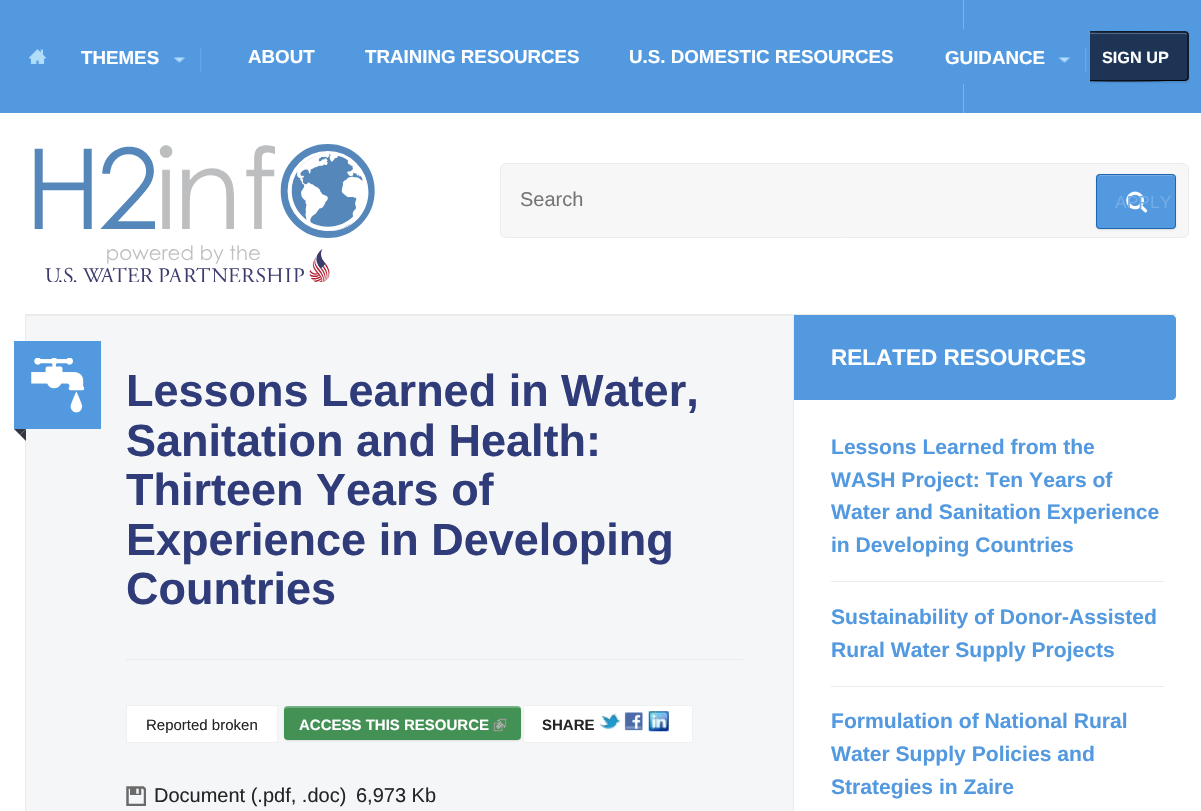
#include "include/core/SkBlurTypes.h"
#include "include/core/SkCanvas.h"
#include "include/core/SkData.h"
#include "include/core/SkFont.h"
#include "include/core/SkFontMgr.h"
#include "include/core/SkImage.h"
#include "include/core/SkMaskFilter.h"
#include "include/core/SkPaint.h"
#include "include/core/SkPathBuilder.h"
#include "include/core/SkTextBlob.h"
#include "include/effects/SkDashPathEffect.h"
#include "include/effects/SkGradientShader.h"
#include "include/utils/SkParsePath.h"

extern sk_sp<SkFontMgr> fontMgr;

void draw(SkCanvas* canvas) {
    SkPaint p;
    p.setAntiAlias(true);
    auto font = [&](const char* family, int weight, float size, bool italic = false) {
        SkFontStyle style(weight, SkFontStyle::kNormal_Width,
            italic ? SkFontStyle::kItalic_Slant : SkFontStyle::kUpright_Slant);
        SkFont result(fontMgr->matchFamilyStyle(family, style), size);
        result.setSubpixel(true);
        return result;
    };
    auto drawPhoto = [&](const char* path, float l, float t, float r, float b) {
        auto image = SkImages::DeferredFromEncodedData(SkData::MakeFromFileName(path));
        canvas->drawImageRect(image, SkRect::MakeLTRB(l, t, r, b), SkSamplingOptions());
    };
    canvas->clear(0xFFFFFFFF);
    p.setColor(0xFF5399E0);
    canvas->drawRect(SkRect::MakeLTRB(0, 0, 1201, 113), p);
    drawPhoto("media/1.png", 29, 49, 46, 64);
    drawPhoto("media/2.png", 173, 47, 202, 73);
    auto font1 = font("Liberation Sans", 700, 18.75f);
    p.setColor(0xFFFFFFFF);
    {
        const struct { const char* s; float x, y; } items[] = {
            {"THEMES", 81, 64},
            {"ABOUT", 248, 63},
            {"TRAINING RESOURCES", 365, 63},
            {"U.S. DOMESTIC RESOURCES", 629, 63},
        };
        for (auto [s, x, y] : items) {
            canvas->drawString(s, x, y, font1, p);
        }
    }
    p.setColor(0xFF7EB3E8);
    canvas->drawRect(SkRect::MakeLTRB(963, 0, 964, 113), p);
    p.setColor(0x1A000000);
    p.setMaskFilter(SkMaskFilter::MakeBlur(kNormal_SkBlurStyle, 1));
    canvas->drawRoundRect(SkRect::MakeLTRB(1083, 33, 1189, 83), 4, 4, p);
    p.setMaskFilter(nullptr);
    p.setColor(0xFF203A5D);
    canvas->drawRoundRect(SkRect::MakeLTRB(1083, 31, 1189, 81), 4, 4, p);
    canvas->save();
    canvas->clipPath(SkPathBuilder().moveTo(1087, 31).lineTo(1185, 31).cubicTo(1187, 31, 1189, 33, 1189, 35).lineTo(1189, 77).cubicTo(1189, 79, 1187, 81, 1185, 81).lineTo(1087, 81).cubicTo(1085, 81, 1083, 79, 1083, 77).lineTo(1083, 35).cubicTo(1083, 33, 1085, 31, 1087, 31).close().detach(), true);
    {
        const SkColor colors[] = {0x0DFFFFFF, 0x1A000000};
        const float stops[] = {0, 0.06f};
        const SkPoint ends[] = {{1136, -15}, {1136, 33}};
        p.setShader(SkGradientShader::MakeLinear(ends, colors, stops, 2, SkTileMode::kClamp));
        p.setAlpha(255);
    }
    canvas->drawRect(SkRect::MakeLTRB(1083, 31, 1189, 33), p);
    canvas->restore();
    {
        const SkColor colors[] = {0x0DFFFFFF, 0x1A000000};
        const float stops[] = {0, 0.06f};
        const SkPoint ends[] = {{1136, 32}, {1136, 80}};
        p.setShader(SkGradientShader::MakeLinear(ends, colors, stops, 2, SkTileMode::kClamp));
        p.setAlpha(255);
    }
    canvas->drawRect(SkRect::MakeLTRB(1090, 33, 1189, 80), p);
    p.setShader(nullptr);
    p.setColor(0x33FFFFFF);
    canvas->drawPath(SkPathBuilder().moveTo(1086, 34).lineTo(1185, 34).cubicTo(1186, 34, 1188, 35, 1188, 36).cubicTo(1188, 35, 1188, 34, 1186, 33).lineTo(1103, 33).cubicTo(1097, 33, 1084, 30, 1084, 36).cubicTo(1084, 35, 1085, 34, 1086, 34).close().detach(), p);
    p.setStyle(SkPaint::kStroke_Style);
    p.setStrokeWidth(1.2f);
    p.setColor(0xFF0C1724);
    canvas->drawPath(SkPathBuilder().moveTo(1084, 33).lineTo(1084.5f, 32.5f).cubicTo(1086.5f, 31, 1159.5f, 32, 1168.5f, 32).lineTo(1185, 32).lineTo(1187, 33).detach(), p);
    p.setStyle(SkPaint::kFill_Style);
    {
        const SkColor colors[] = {0x0DFFFFFF, 0x1A000000};
        const float stops[] = {0, 0.06f};
        const SkPoint ends[] = {{1136, 80}, {1136, 128}};
        p.setShader(SkGradientShader::MakeLinear(ends, colors, stops, 2, SkTileMode::kClamp));
        p.setAlpha(255);
    }
    canvas->drawRect(SkRect::MakeLTRB(1094, 80, 1189, 81), p);
    p.setStyle(SkPaint::kStroke_Style);
    p.setShader(nullptr);
    p.setColor(0xFF060B11);
    canvas->drawPath(SkPathBuilder().moveTo(1187, 33).lineTo(1188, 34.5f).lineTo(1188, 78).lineTo(1187, 79.5f).detach(), p);
    p.setColor(0xFF000000);
    canvas->drawPath(SkPathBuilder().moveTo(1187, 79.5f).lineTo(1185, 80.5f).lineTo(1168.5f, 80.5f).cubicTo(1159.5f, 80.5f, 1086.5f, 81.5f, 1084.5f, 80).lineTo(1084, 79.5f).detach(), p);
    p.setStyle(SkPaint::kFill_Style);
    p.setColor(0xFF5399E0);
    canvas->drawRect(SkRect::MakeLTRB(963, 29, 1090, 84), p);
    drawPhoto("media/3.png", 1058, 47, 1087, 73);
    p.setColor(0xFFFFFFFF);
    canvas->drawString("GUIDANCE", 945, 64, font1, p);
    auto font2 = font("Liberation Sans", 700, 16.25f);
    canvas->drawString("SIGN UP", 1102, 63, font2, p);
    drawPhoto("media/4.png", 34, 144, 375, 282);
    p.setColor(0xFFF7F7F7);
    canvas->drawRoundRect(SkRect::MakeLTRB(500.5f, 163.5f, 1188.5f, 237.5f), 5.5f, 5.5f, p);
    p.setStyle(SkPaint::kStroke_Style);
    p.setStrokeWidth(1);
    p.setColor(0xFFEAEBEC);
    canvas->drawRoundRect(SkRect::MakeLTRB(500.5f, 163.5f, 1188.5f, 237.5f), 5.5f, 5.5f, p);
    auto font3 = font("Liberation Sans", 400, 20);
    p.setStyle(SkPaint::kFill_Style);
    p.setColor(0xFF757575);
    canvas->drawString("Search", 520, 206, font3, p);
    p.setColor(0x1A000000);
    p.setMaskFilter(SkMaskFilter::MakeBlur(kNormal_SkBlurStyle, 1));
    canvas->drawRoundRect(SkRect::MakeLTRB(1096, 175, 1176, 230), 4, 4, p);
    p.setMaskFilter(nullptr);
    p.setColor(0xFF5399E0);
    canvas->drawRoundRect(SkRect::MakeLTRB(1096, 174, 1176, 229), 4, 4, p);
    drawPhoto("media/5.png", 1126, 191, 1148, 213);
    p.setColor(0xFF75ADE6);
    canvas->drawPath(SkPathBuilder().moveTo(1100, 176).lineTo(1172, 176).cubicTo(1174, 176, 1175, 177, 1175, 179).cubicTo(1175, 172, 1166, 175, 1160, 175).lineTo(1112, 175).cubicTo(1107, 175, 1098, 172, 1098, 179).cubicTo(1098, 177, 1099, 176, 1100, 176).close().detach(), p);
    p.setStyle(SkPaint::kStroke_Style);
    p.setColor(0xFF1F66AE);
    canvas->drawRoundRect(SkRect::MakeLTRB(1096.5f, 174.5f, 1175.5f, 228.5f), 3.5f, 3.5f, p);
    auto font4 = font("Liberation Sans", 400, 17.5f);
    p.setStyle(SkPaint::kFill_Style);
    p.setColor(0xFF73ACE6);
    canvas->drawString("APPLY", 1115, 208, font4, p);
    {
        const struct { float l, t, r, b; SkColor color; } items[] = {
            {25, 314, 1176, 315, 0xFFEBEBEB},
            {26, 316, 793, 811, 0xFFF5F6F8},
            {25, 315, 793, 316, 0xFFEBEBEB},
            {25, 315, 26, 811, 0xFFEBEBEB},
            {14, 341, 101, 429, 0xFF5399E0},
        };
        for (auto [l, t, r, b, color] : items) {
            p.setColor(color);
            canvas->drawRect(SkRect::MakeLTRB(l, t, r, b), p);
        }
    }
    drawPhoto("media/6.png", 31, 358, 84, 413);
    p.setColor(0xFF323743);
    canvas->drawPath(SkPathBuilder().moveTo(14, 429).lineTo(26, 429).lineTo(20, 435).close().detach(), p);
    canvas->drawPath(SkPathBuilder().moveTo(26, 429).lineTo(26, 441).lineTo(20, 435).close().detach(), p);
    p.setColor(0xFFEBEBEB);
    canvas->drawRect(SkRect::MakeLTRB(126, 659, 743, 660), p);
    auto font5 = font("Liberation Sans", 700, 45);
    p.setColor(0xFF2F3C79);
    {
        const struct { const char* s; float x, y; } items[] = {
            {"Lessons Learned in Water,", 126, 406},
            {"Sanitation and Health:", 126, 456},
            {"Thirteen Years of", 126, 505},
            {"Experience in Developing", 126, 555},
            {"Countries", 126, 604},
        };
        for (auto [s, x, y] : items) {
            canvas->drawString(s, x, y, font5, p);
        }
    }
    p.setColor(0xFFFFFFFF);
    canvas->drawRect(SkRect::MakeLTRB(126.5f, 705.5f, 277.5f, 742.5f), p);
    p.setStyle(SkPaint::kStroke_Style);
    p.setColor(0xFFF0F0F0);
    canvas->drawRect(SkRect::MakeLTRB(126.5f, 705.5f, 277.5f, 742.5f), p);
    auto font6 = font("Liberation Sans", 400, 15);
    p.setStyle(SkPaint::kFill_Style);
    p.setColor(0xFF252525);
    canvas->drawString("Reported broken", 146, 730, font6, p);
    p.setColor(0x1A000000);
    p.setMaskFilter(SkMaskFilter::MakeBlur(kNormal_SkBlurStyle, 1));
    canvas->drawRoundRect(SkRect::MakeLTRB(284, 708, 521, 741), 4, 4, p);
    p.setMaskFilter(nullptr);
    p.setColor(0xFF4CA160);
    canvas->drawRoundRect(SkRect::MakeLTRB(284, 706, 521, 740), 4, 4, p);
    {
        const SkColor colors[] = {0x0DFFFFFF, 0x1A000000};
        const float stops[] = {0, 0.06f};
        const SkPoint ends[] = {{403, 706}, {403, 740}};
        p.setShader(SkGradientShader::MakeLinear(ends, colors, stops, 2, SkTileMode::kClamp));
        p.setAlpha(255);
    }
    canvas->drawRoundRect(SkRect::MakeLTRB(284, 706, 521, 740), 4, 4, p);
    p.setShader(nullptr);
    p.setColor(0x33FFFFFF);
    canvas->drawPath(SkPathBuilder().moveTo(288, 708).lineTo(519, 708).lineTo(521, 709).lineTo(521, 711).cubicTo(521, 708, 520, 706, 517, 706).lineTo(288, 706).cubicTo(285, 706, 284, 708, 284, 711).cubicTo(284, 709, 285, 708, 288, 708).close().detach(), p);
    auto font7 = font("Liberation Sans", 700, 15);
    p.setColor(0xFFFFFFFF);
    canvas->drawString("ACCESS THIS RESOURCE", 299, 730, font7, p);
    drawPhoto("media/7.png", 493, 718, 507, 732);
    canvas->drawRect(SkRect::MakeLTRB(523.5f, 705.5f, 692.5f, 742.5f), p);
    p.setStyle(SkPaint::kStroke_Style);
    p.setColor(0xFFF0F0F0);
    canvas->drawRect(SkRect::MakeLTRB(523.5f, 705.5f, 692.5f, 742.5f), p);
    p.setStyle(SkPaint::kFill_Style);
    p.setColor(0xFF252525);
    canvas->drawString("SHARE", 542, 730, font7, p);
    drawPhoto("media/8.png", 600, 713, 620, 729);
    drawPhoto("media/9.png", 624, 712, 643, 731);
    drawPhoto("media/10.png", 648, 711, 669, 732);
    drawPhoto("media/11.png", 126, 786, 146, 806);
    canvas->drawString("Document (.pdf, .doc)", 154, 802, font3, p);
    canvas->drawString("6,973 Kb", 356, 802, font3, p);
    p.setColor(0xFFEBEBEB);
    canvas->drawRect(SkRect::MakeLTRB(793, 314, 794, 811), p);
    p.setColor(0xFF5399E0);
    canvas->drawPath(SkPathBuilder().moveTo(794, 315).lineTo(1172, 315).cubicTo(1174, 315, 1176, 317, 1176, 319).lineTo(1176, 396).cubicTo(1176, 398, 1174, 400, 1172, 400).lineTo(794, 400).close().detach(), p);
    auto font8 = font("Liberation Sans", 700, 22.5f);
    p.setColor(0xFFFFFFFF);
    canvas->drawString("RELATED RESOURCES", 831, 365, font8, p);
    auto font9 = font("Liberation Sans", 700, 21.1f);
    p.setColor(0xFF5399E0);
    {
        const struct { const char* s; float x, y; } items[] = {
            {"Lessons Learned from the", 831, 454},
            {"WASH Project: Ten Years of", 831, 487},
            {"Water and Sanitation Experience", 831, 519},
            {"in Developing Countries", 831, 552},
        };
        for (auto [s, x, y] : items) {
            canvas->drawString(s, x, y, font9, p);
        }
    }
    p.setColor(0xFFEBEBEB);
    canvas->drawRect(SkRect::MakeLTRB(831, 581, 1164, 582), p);
    p.setColor(0xFF5399E0);
    canvas->drawString("Sustainability of Donor-Assisted", 831, 624, font9, p);
    canvas->drawString("Rural Water Supply Projects", 831, 657, font9, p);
    p.setColor(0xFFEBEBEB);
    canvas->drawRect(SkRect::MakeLTRB(831, 686, 1164, 687), p);
    p.setColor(0xFF5399E0);
    {
        const struct { const char* s; float x, y; } items[] = {
            {"Formulation of National Rural", 831, 728},
            {"Water Supply Policies and", 831, 761},
            {"Strategies in Zaire", 831, 794},
        };
        for (auto [s, x, y] : items) {
            canvas->drawString(s, x, y, font9, p);
        }
    }
}
